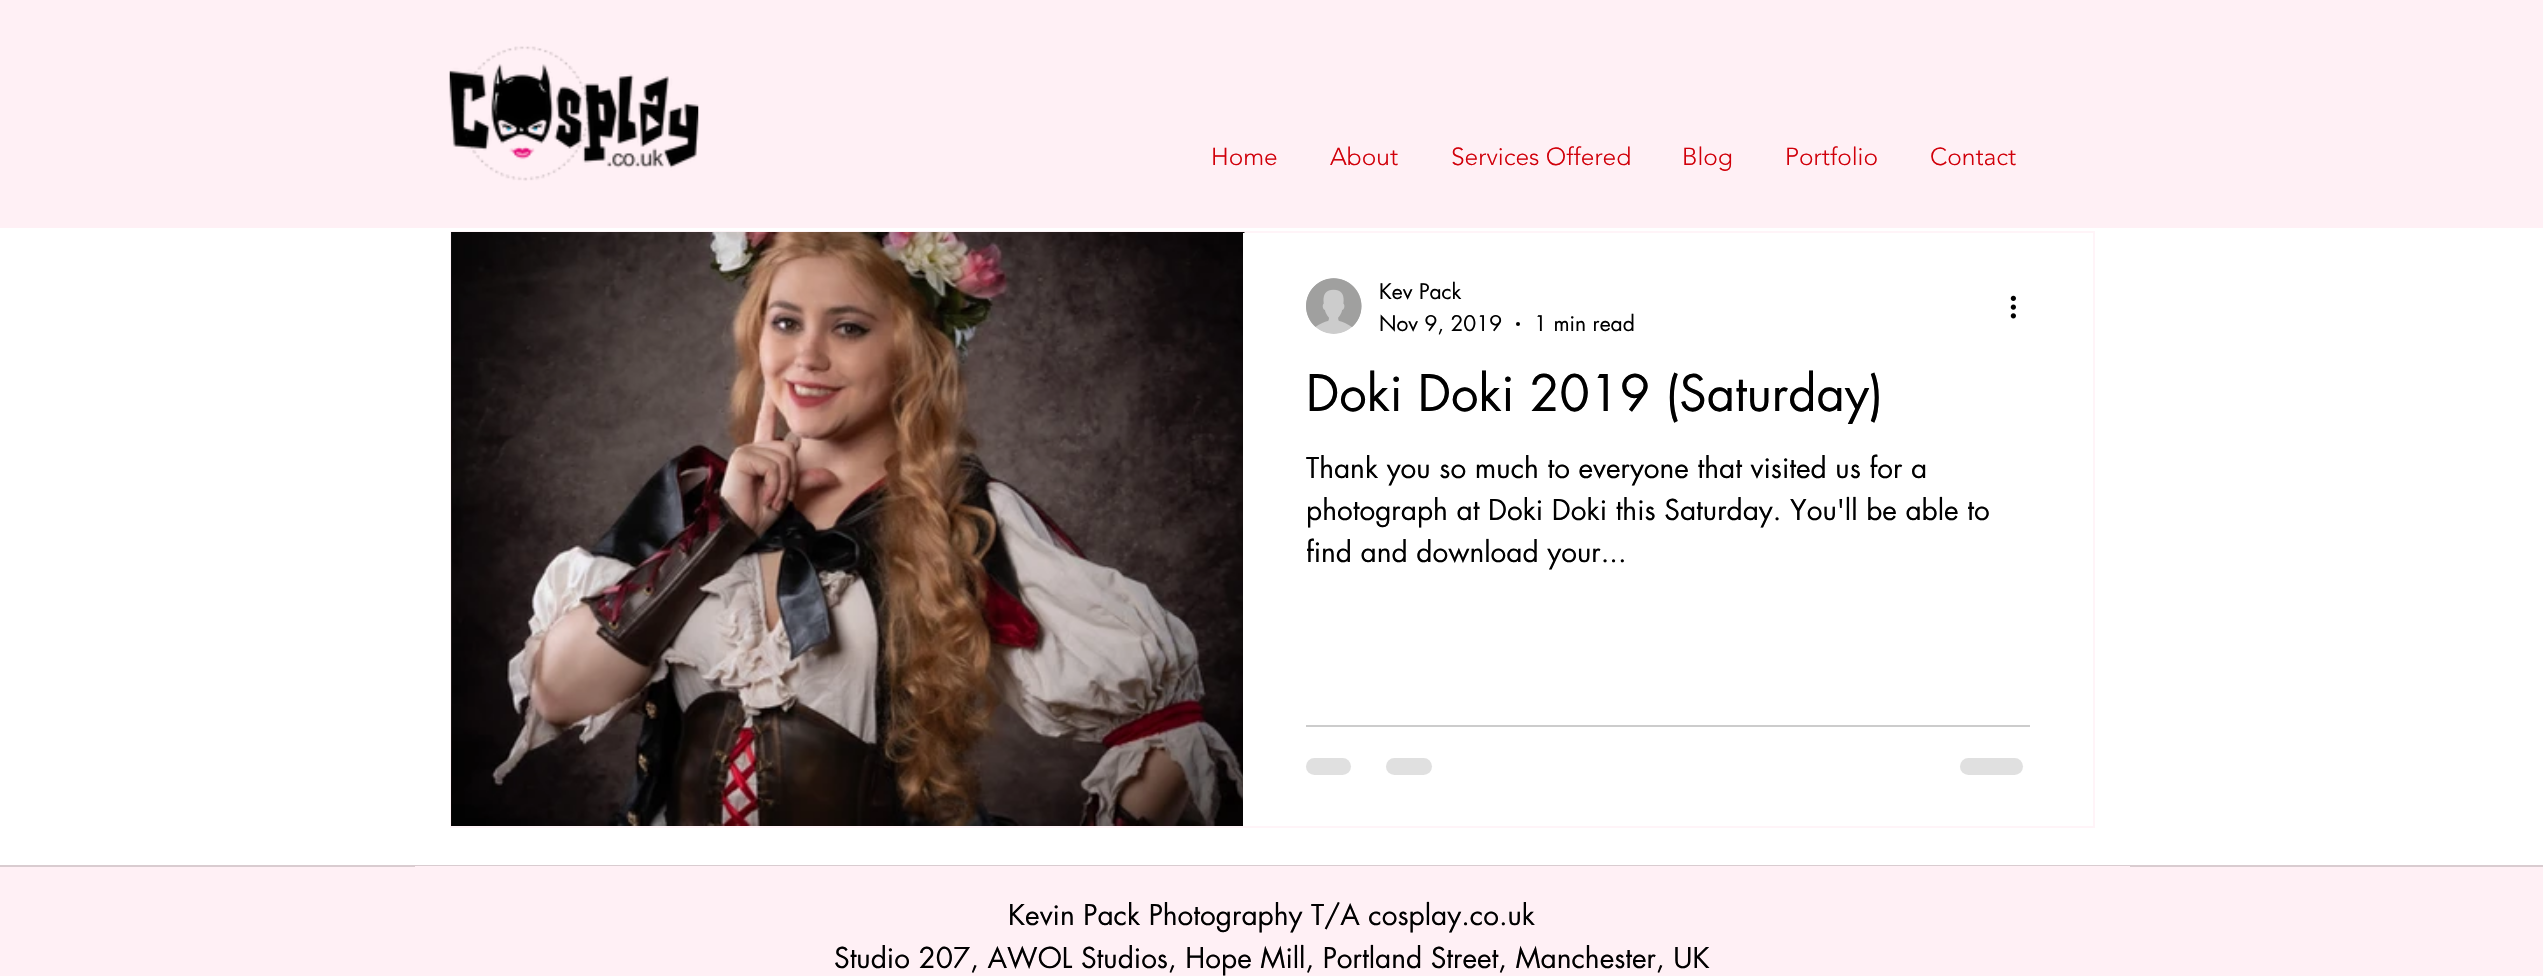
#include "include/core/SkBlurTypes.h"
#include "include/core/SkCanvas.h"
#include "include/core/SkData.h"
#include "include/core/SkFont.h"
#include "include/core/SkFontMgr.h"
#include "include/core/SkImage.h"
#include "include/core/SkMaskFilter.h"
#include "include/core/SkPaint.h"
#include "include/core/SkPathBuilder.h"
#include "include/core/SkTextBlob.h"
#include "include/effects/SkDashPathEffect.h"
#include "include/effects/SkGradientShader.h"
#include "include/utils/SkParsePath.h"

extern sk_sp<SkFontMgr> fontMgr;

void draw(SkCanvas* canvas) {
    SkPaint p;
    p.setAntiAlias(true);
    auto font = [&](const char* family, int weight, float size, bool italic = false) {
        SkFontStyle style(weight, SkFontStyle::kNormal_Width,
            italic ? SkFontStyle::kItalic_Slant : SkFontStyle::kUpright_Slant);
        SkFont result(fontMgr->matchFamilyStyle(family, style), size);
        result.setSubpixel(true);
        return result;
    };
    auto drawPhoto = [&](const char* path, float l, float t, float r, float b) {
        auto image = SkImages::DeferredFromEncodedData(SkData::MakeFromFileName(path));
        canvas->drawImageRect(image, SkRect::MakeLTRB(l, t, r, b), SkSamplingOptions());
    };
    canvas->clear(0xFFFFFFFF);
    p.setColor(0xFFFFF0F5);
    canvas->drawRect(SkRect::MakeLTRB(0, 0, 2543, 228), p);
    drawPhoto("media/1.png", 449, 46, 699, 181);
    auto font1 = font("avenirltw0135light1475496", 300, 24.5f);
    p.setColor(0xFFD1000A);
    {
        const struct { const char* s; float x, y; } items[] = {
            {"Home", 1211, 165},
            {"About", 1330, 165},
            {"Services Offered", 1451, 165},
            {"Blog", 1682, 165},
            {"Portfolio", 1785, 165},
            {"Contact", 1930, 165},
        };
        for (auto [s, x, y] : items) {
            canvas->drawString(s, x, y, font1, p);
        }
    }
    p.setStyle(SkPaint::kStroke_Style);
    p.setStrokeWidth(2);
    p.setColor(0xFFFFF4F8);
    canvas->drawRect(SkRect::MakeLTRB(451, 232, 2094, 827), p);
    drawPhoto("media/2.png", 451, 232, 1245, 826);
    drawPhoto("media/3.png", 452, 232, 1244, 826);
    p.setStyle(SkPaint::kFill_Style);
    p.setColor(0xFFFFFFFF);
    canvas->drawRect(SkRect::MakeLTRB(1243, 233, 1245, 826), p);
    drawPhoto("media/4.png", 1306, 278, 1362, 334);
    auto font2 = font("futura", 400, 21);
    p.setColor(0xFF000000);
    canvas->drawString("Kev Pack", 1379, 299, font2, p);
    canvas->drawString("Nov 9, 2019", 1379, 331, font2, p);
    canvas->drawCircle(1518, 324, 2, p);
    canvas->drawString("1 min read", 1534, 331, font2, p);
    drawPhoto("media/5.png", 2010, 295, 2016, 319);
    auto font3 = font("futura", 400, 49);
    canvas->drawString("Doki Doki 2019 (Saturday)", 1306, 411, font3, p);
    auto font4 = font("futura", 400, 28);
    {
        const struct { const char* s; float x, y; } items[] = {
            {"Thank you so much to everyone that visited us for a", 1306, 478},
            {"photograph at Doki Doki this Saturday. You'll be able to", 1306, 520},
            {"find and download your...", 1306, 562},
        };
        for (auto [s, x, y] : items) {
            canvas->drawString(s, x, y, font4, p);
        }
    }
    p.setColor(0xFFCCCCCC);
    canvas->drawRect(SkRect::MakeLTRB(1306, 725, 2030, 727), p);
    p.setColor(0xFFE0E0E0);
    canvas->drawRoundRect(SkRect::MakeLTRB(1306, 758, 1351, 775), 8.5f, 8.5f, p);
    canvas->drawRoundRect(SkRect::MakeLTRB(1386, 758, 1432, 775), 8.5f, 8.5f, p);
    canvas->drawRoundRect(SkRect::MakeLTRB(1960, 758, 2023, 775), 8.5f, 8.5f, p);
    {
        const struct { float l, t, r, b; SkColor color; } items[] = {
            {0, 867, 2543, 976, 0xFFFFF0F5},
            {0, 865, 2543, 867, 0xFFD9CCD0},
            {415, 866, 2130, 867, 0xFFFFF0F5},
        };
        for (auto [l, t, r, b, color] : items) {
            p.setColor(color);
            canvas->drawRect(SkRect::MakeLTRB(l, t, r, b), p);
        }
    }
    p.setColor(0xFF000000);
    canvas->drawString("Kevin Pack Photography T/A cosplay.co.uk", 1008, 925, font4, p);
    canvas->drawString("Studio 207, AWOL Studios, Hope Mill, Portland Street, Manchester, UK", 834, 968, font4, p);
}
